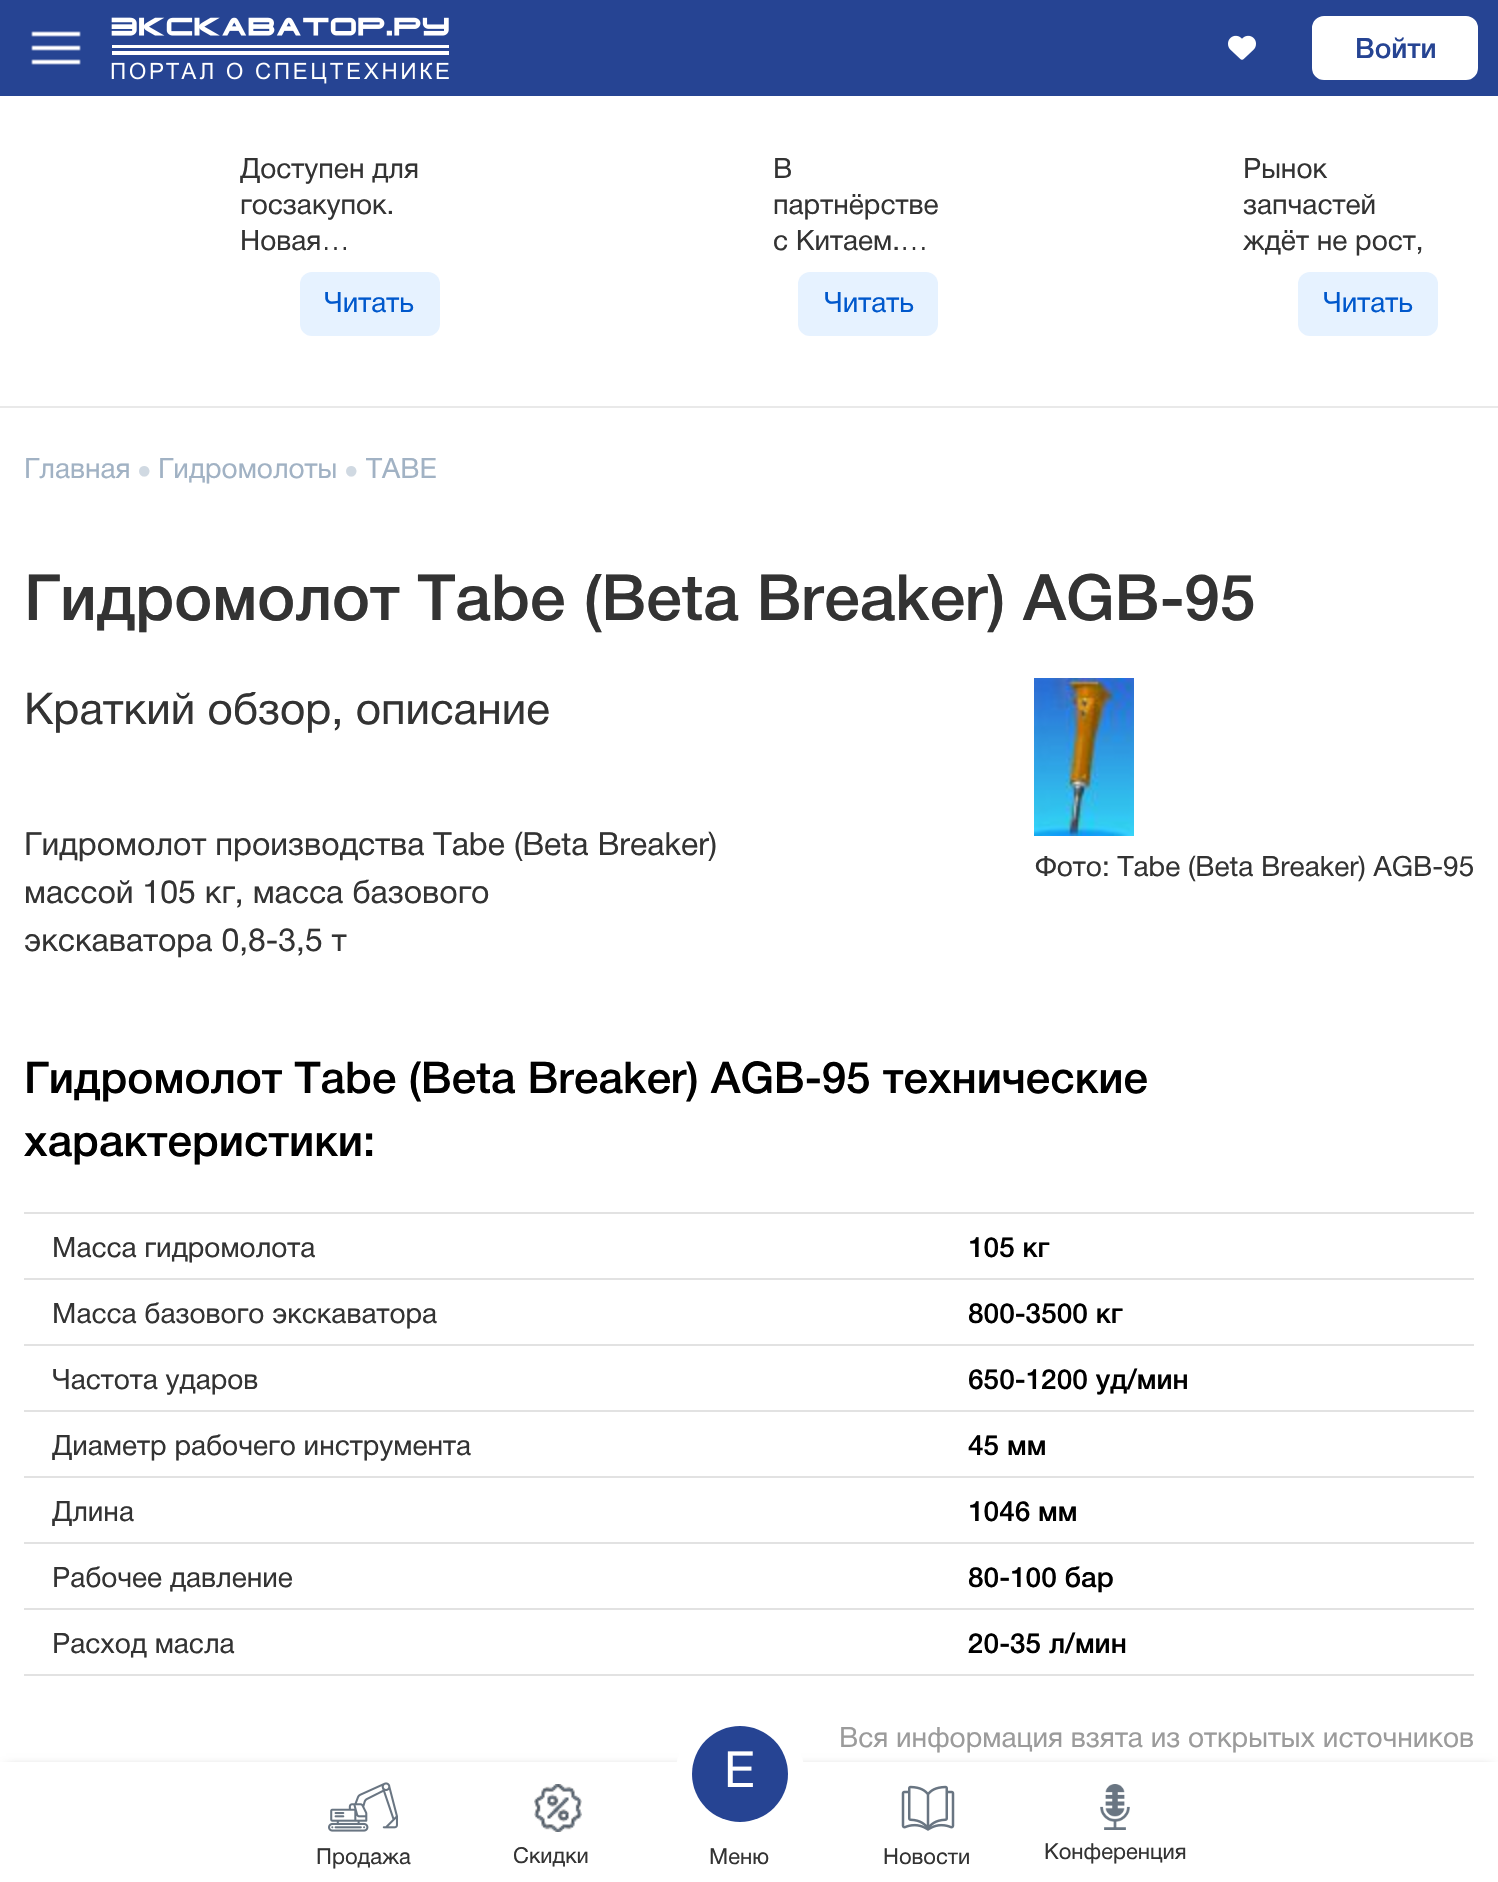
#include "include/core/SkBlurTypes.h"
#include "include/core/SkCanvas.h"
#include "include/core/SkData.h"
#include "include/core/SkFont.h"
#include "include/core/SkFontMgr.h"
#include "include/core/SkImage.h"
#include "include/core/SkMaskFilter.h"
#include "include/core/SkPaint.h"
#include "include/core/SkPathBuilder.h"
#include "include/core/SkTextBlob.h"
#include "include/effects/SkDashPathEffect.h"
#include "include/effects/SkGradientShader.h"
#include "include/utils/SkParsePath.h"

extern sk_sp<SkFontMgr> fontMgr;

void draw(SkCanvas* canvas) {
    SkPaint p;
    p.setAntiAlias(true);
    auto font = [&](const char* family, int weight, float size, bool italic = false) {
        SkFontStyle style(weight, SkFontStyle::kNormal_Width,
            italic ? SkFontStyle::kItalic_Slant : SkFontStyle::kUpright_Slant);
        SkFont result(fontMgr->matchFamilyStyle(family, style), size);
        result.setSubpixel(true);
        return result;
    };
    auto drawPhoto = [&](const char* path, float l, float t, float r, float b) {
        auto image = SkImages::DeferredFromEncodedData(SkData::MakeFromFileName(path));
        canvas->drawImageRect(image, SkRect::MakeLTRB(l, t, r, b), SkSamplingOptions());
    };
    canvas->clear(0xFFFFFFFF);
    p.setColor(0xFF264493);
    canvas->drawRect(SkRect::MakeLTRB(0, 0, 1498, 96), p);
    drawPhoto("media/1.png", 31, 31, 81, 65);
    drawPhoto("media/2.png", 111, 17, 449, 84);
    drawPhoto("media/3.png", 1228, 35, 1256, 60);
    p.setColor(0xFFFFFFFF);
    canvas->drawRoundRect(SkRect::MakeLTRB(1313, 17, 1477, 79), 11, 11, p);
    p.setStyle(SkPaint::kStroke_Style);
    p.setStrokeWidth(2);
    canvas->drawRoundRect(SkRect::MakeLTRB(1313, 17, 1477, 79), 11, 11, p);
    auto font1 = font("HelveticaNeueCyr", 500, 28);
    p.setStyle(SkPaint::kFill_Style);
    p.setColor(0xFF264493);
    canvas->drawString("Войти", 1355, 58, font1, p);
    auto font2 = font("HelveticaNeueCyr", 400, 28);
    p.setColor(0xFF333333);
    {
        const struct { const char* s; float x, y; } items[] = {
            {"Доступен для", 240, 178},
            {"госзакупок.", 240, 214},
            {"Новая…", 240, 250},
        };
        for (auto [s, x, y] : items) {
            canvas->drawString(s, x, y, font2, p);
        }
    }
    p.setColor(0xFFE6F2FF);
    canvas->drawRoundRect(SkRect::MakeLTRB(300, 272, 440, 336), 12, 12, p);
    p.setColor(0xFF0058CC);
    canvas->drawString("Читать", 324, 312, font2, p);
    p.setColor(0xFF333333);
    {
        const struct { const char* s; float x, y; } items[] = {
            {"В", 773, 178},
            {"партнёрстве", 773, 214},
            {"с Китаем.…", 773, 250},
        };
        for (auto [s, x, y] : items) {
            canvas->drawString(s, x, y, font2, p);
        }
    }
    p.setColor(0xFFE6F2FF);
    canvas->drawRoundRect(SkRect::MakeLTRB(798, 272, 938, 336), 12, 12, p);
    p.setColor(0xFF0058CC);
    canvas->drawString("Читать", 824, 312, font2, p);
    p.setColor(0xFF333333);
    {
        const struct { const char* s; float x, y; } items[] = {
            {"Рынок", 1243, 178},
            {"запчастей", 1243, 214},
            {"ждёт не рост,", 1243, 250},
        };
        for (auto [s, x, y] : items) {
            canvas->drawString(s, x, y, font2, p);
        }
    }
    p.setColor(0xFFE6F2FF);
    canvas->drawRoundRect(SkRect::MakeLTRB(1298, 272, 1438, 336), 12, 12, p);
    p.setColor(0xFF0058CC);
    canvas->drawString("Читать", 1323, 312, font2, p);
    p.setColor(0xFFE9E9E9);
    canvas->drawRect(SkRect::MakeLTRB(0, 406, 1498, 408), p);
    p.setColor(0xFFA1B2C4);
    canvas->drawString("Главная", 24, 478, font2, p);
    auto font3 = font("Liberation Sans", 400, 24);
    p.setColor(0xFFD0D9E2);
    canvas->drawString("●", 137, 478, font3, p);
    p.setColor(0xFFA1B2C4);
    canvas->drawString("Гидромолоты", 158, 478, font2, p);
    p.setColor(0xFFD0D9E2);
    canvas->drawString("●", 344, 478, font3, p);
    p.setColor(0xFFA1B2C4);
    canvas->drawString("TABE", 366, 478, font2, p);
    auto font4 = font("HelveticaNeueCyr", 500, 64);
    p.setColor(0xFF333333);
    canvas->drawString("Гидромолот Tabe (Beta Breaker) AGB-95", 24, 620, font4, p);
    auto font5 = font("HelveticaNeueCyr", 400, 44);
    canvas->drawString("Краткий обзор, описание", 24, 724, font5, p);
    auto font6 = font("HelveticaNeueCyr", 400, 32);
    {
        const struct { const char* s; float x, y; } items[] = {
            {"Гидромолот производства Tabe (Beta Breaker)", 24, 855},
            {"массой 105 кг, масса базового", 24, 903},
            {"экскаватора 0,8-3,5 т", 24, 951},
        };
        for (auto [s, x, y] : items) {
            canvas->drawString(s, x, y, font6, p);
        }
    }
    drawPhoto("media/4.png", 1034, 678, 1134, 836);
    canvas->drawString("Фото: Tabe (Beta Breaker) AGB-95", 1035, 876, font2, p);
    auto font7 = font("HelveticaNeueCyr", 500, 44);
    p.setColor(0xFF000000);
    canvas->drawString("Гидромолот Tabe (Beta Breaker) AGB-95 технические", 24, 1093, font7, p);
    canvas->drawString("характеристики:", 24, 1156, font7, p);
    p.setColor(0xFFE2E2E2);
    canvas->drawRect(SkRect::MakeLTRB(24, 1212, 1474, 1214), p);
    p.setColor(0xFF333333);
    canvas->drawString("Масса гидромолота", 52, 1257, font2, p);
    p.setColor(0xFFE2E2E2);
    canvas->drawRect(SkRect::MakeLTRB(24, 1278, 1474, 1280), p);
    p.setColor(0xFF000000);
    canvas->drawString("105 кг", 968, 1257, font1, p);
    p.setColor(0xFF333333);
    canvas->drawString("Масса базового экскаватора", 52, 1323, font2, p);
    p.setColor(0xFFE2E2E2);
    canvas->drawRect(SkRect::MakeLTRB(24, 1344, 1474, 1346), p);
    p.setColor(0xFF000000);
    canvas->drawString("800-3500 кг", 968, 1323, font1, p);
    p.setColor(0xFF333333);
    canvas->drawString("Частота ударов", 52, 1389, font2, p);
    p.setColor(0xFFE2E2E2);
    canvas->drawRect(SkRect::MakeLTRB(24, 1410, 1474, 1412), p);
    p.setColor(0xFF000000);
    canvas->drawString("650-1200 уд/мин", 968, 1389, font1, p);
    p.setColor(0xFF333333);
    canvas->drawString("Диаметр рабочего инструмента", 52, 1455, font2, p);
    p.setColor(0xFFE2E2E2);
    canvas->drawRect(SkRect::MakeLTRB(24, 1476, 1474, 1478), p);
    p.setColor(0xFF000000);
    canvas->drawString("45 мм", 968, 1455, font1, p);
    p.setColor(0xFF333333);
    canvas->drawString("Длина", 52, 1521, font2, p);
    p.setColor(0xFFE2E2E2);
    canvas->drawRect(SkRect::MakeLTRB(24, 1542, 1474, 1544), p);
    p.setColor(0xFF000000);
    canvas->drawString("1046 мм", 968, 1521, font1, p);
    p.setColor(0xFF333333);
    canvas->drawString("Рабочее давление", 52, 1587, font2, p);
    p.setColor(0xFFE2E2E2);
    canvas->drawRect(SkRect::MakeLTRB(24, 1608, 1474, 1610), p);
    p.setColor(0xFF000000);
    canvas->drawString("80-100 бар", 968, 1587, font1, p);
    p.setColor(0xFF333333);
    canvas->drawString("Расход масла", 52, 1653, font2, p);
    p.setColor(0xFFE2E2E2);
    canvas->drawRect(SkRect::MakeLTRB(24, 1674, 1474, 1676), p);
    p.setColor(0xFF000000);
    canvas->drawString("20-35 л/мин", 968, 1653, font1, p);
    p.setColor(0xFF9B9B9B);
    canvas->drawString("Вся информация взята из открытых источников", 839, 1747, font2, p);
    p.setColor(0x66000000);
    p.setMaskFilter(SkMaskFilter::MakeBlur(kNormal_SkBlurStyle, 5));
    canvas->drawRect(SkRect::MakeLTRB(6, 1768, 1492, 1876), p);
    p.setMaskFilter(nullptr);
    p.setColor(0xFFFFFFFF);
    canvas->drawRect(SkRect::MakeLTRB(0, 1762, 1498, 1882), p);
    drawPhoto("media/5.png", 328, 1782, 398, 1832);
    auto font8 = font("HelveticaNeueCyr", 400, 22);
    p.setColor(0xFF333333);
    canvas->drawString("Продажа", 316, 1864, font8, p);
    drawPhoto("media/6.png", 534, 1784, 582, 1832);
    canvas->drawString("Скидки", 513, 1863, font8, p);
    p.setColor(0xFFFFFFFF);
    canvas->drawCircle(740, 1772, 64, p);
    p.setColor(0xFF264493);
    canvas->drawCircle(740, 1774, 48, p);
    auto font9 = font("HelveticaNeueCyr", 400, 50);
    p.setColor(0xFFFFFFFF);
    canvas->drawString("E", 724, 1787, font9, p);
    p.setColor(0xFF333333);
    canvas->drawString("Меню", 709, 1864, font8, p);
    drawPhoto("media/7.png", 901, 1785, 955, 1831);
    canvas->drawString("Новости", 883, 1864, font8, p);
    drawPhoto("media/8.png", 1100, 1784, 1130, 1830);
    canvas->drawString("Конференция", 1044, 1859, font8, p);
}
